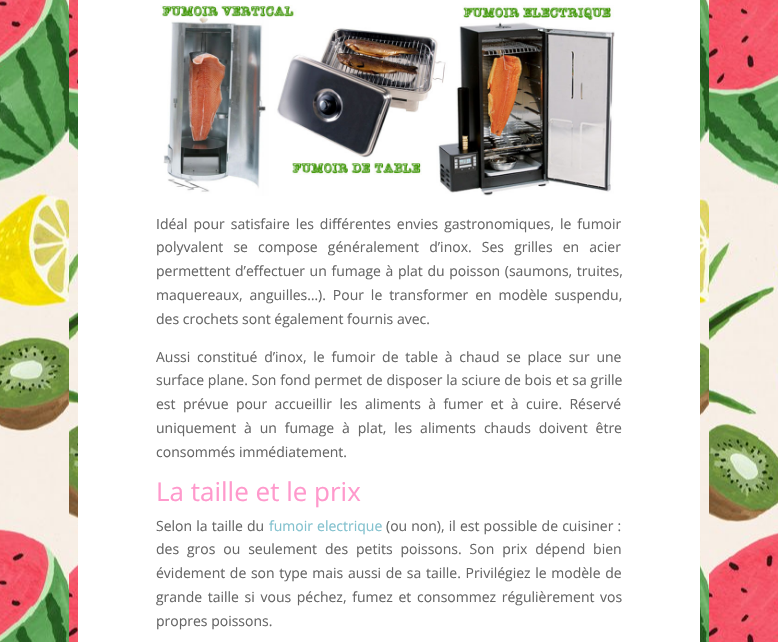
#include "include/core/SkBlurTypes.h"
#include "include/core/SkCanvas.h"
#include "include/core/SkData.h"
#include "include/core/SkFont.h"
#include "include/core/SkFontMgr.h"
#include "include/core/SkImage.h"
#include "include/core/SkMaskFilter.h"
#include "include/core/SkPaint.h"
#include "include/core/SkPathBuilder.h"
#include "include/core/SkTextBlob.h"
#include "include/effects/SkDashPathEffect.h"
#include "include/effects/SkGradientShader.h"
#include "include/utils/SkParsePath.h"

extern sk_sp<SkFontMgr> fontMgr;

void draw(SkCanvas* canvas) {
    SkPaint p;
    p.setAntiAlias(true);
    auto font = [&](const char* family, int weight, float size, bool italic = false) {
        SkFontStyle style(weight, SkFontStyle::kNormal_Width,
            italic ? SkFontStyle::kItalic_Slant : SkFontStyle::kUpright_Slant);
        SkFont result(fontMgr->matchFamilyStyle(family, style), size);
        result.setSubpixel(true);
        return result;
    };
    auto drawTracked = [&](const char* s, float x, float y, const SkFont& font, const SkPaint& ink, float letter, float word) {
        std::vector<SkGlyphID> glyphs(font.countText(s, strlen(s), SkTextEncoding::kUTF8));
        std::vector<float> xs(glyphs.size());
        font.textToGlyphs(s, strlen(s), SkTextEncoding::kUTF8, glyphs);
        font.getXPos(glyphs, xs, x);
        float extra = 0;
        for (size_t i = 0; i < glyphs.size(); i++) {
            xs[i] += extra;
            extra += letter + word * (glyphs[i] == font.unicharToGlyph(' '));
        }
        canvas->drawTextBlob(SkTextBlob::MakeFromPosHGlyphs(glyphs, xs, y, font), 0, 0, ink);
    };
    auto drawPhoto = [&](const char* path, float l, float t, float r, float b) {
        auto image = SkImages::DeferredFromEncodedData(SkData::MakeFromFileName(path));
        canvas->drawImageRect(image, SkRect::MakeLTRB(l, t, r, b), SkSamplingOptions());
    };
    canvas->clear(0xFFFFFFFF);
    drawPhoto("media/1.png", 0, 0, 778, 642);
    p.setColor(0xFFFFFFFF);
    canvas->drawRect(SkRect::MakeLTRB(78, 0, 700, 642), p);
    drawPhoto("media/2.png", 160, 5, 615, 196);
    auto font1 = font("Open Sans", 400, 14);
    p.setColor(0xFF666666);
    drawTracked("Idéal pour satisfaire les différentes envies gastronomiques, le fumoir", 156, 229, font1, p, 0, 2.25f);
    drawTracked("polyvalent se compose généralement d’inox. Ses grilles en acier", 156, 252, font1, p, 0, 6.5f);
    drawTracked("permettent d’effectuer un fumage à plat du poisson (saumons, truites,", 156, 276, font1, p, 0, 1);
    drawTracked("maquereaux, anguilles…). Pour le transformer en modèle suspendu,", 156, 300, font1, p, 0, 3.25f);
    canvas->drawString("des crochets sont également fournis avec.", 156, 324, font1, p);
    drawTracked("Aussi constitué d’inox, le fumoir de table à chaud se place sur une", 156, 362, font1, p, 0, 3.1f);
    drawTracked("surface plane. Son fond permet de disposer la sciure de bois et sa grille", 156, 385, font1, p, 0, 0.2f);
    drawTracked("est prévue pour accueillir les aliments à fumer et à cuire. Réservé", 156, 409, font1, p, 0, 3.75f);
    drawTracked("uniquement à un fumage à plat, les aliments chauds doivent être", 156, 433, font1, p, 0, 4.25f);
    canvas->drawString("consommés immédiatement.", 156, 457, font1, p);
    auto font2 = font("Open Sans", 400, 26);
    p.setColor(0xFFFF99CC);
    canvas->drawString("La taille et le prix", 156, 501, font2, p);
    p.setColor(0xFF666666);
    drawTracked("Selon la taille du", 156, 531, font1, p, 0, 0.5f);
    p.setColor(0xFF82C1CE);
    drawTracked("fumoir electrique", 269, 531, font1, p, 0, 0.5f);
    p.setColor(0xFF666666);
    drawTracked("(ou non), il est possible de cuisiner :", 386, 531, font1, p, 0, 0.5f);
    drawTracked("des gros ou seulement des petits poissons. Son prix dépend bien", 156, 554, font1, p, 0, 4.25f);
    drawTracked("évidement de son type mais aussi de sa taille. Privilégiez le modèle de", 156, 578, font1, p, 0, 1);
    drawTracked("grande taille si vous péchez, fumez et consommez régulièrement vos", 156, 602, font1, p, 0, 2);
    canvas->drawString("propres poissons.", 156, 626, font1, p);
}
